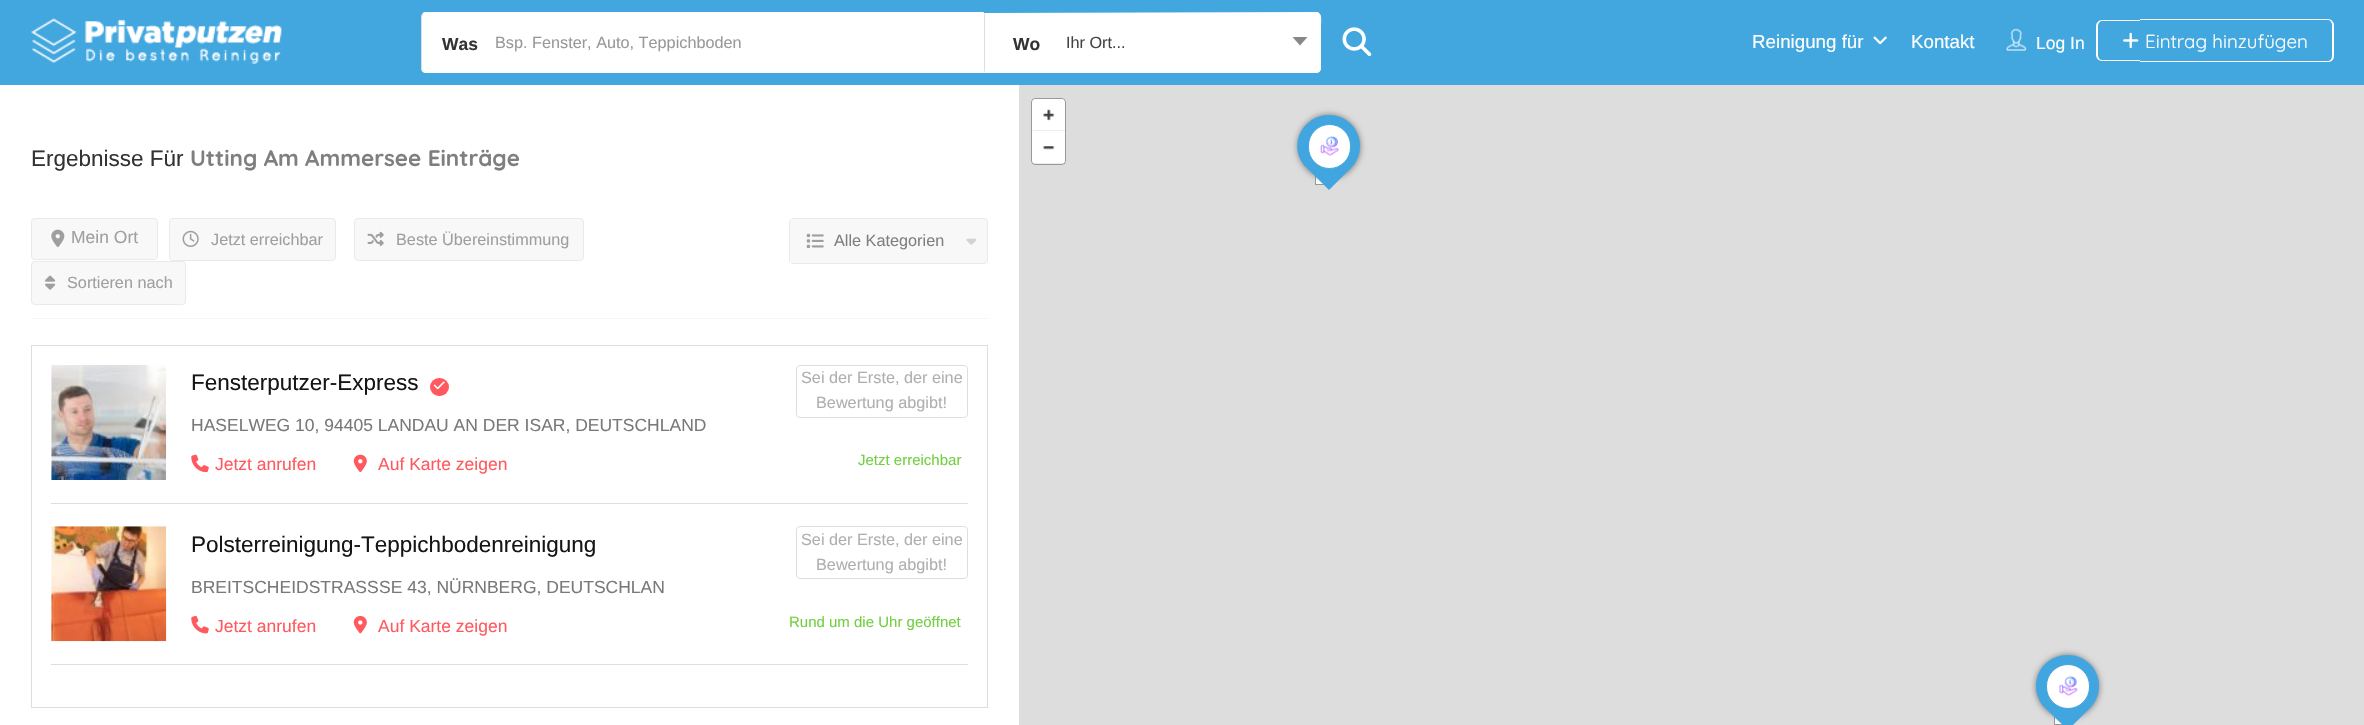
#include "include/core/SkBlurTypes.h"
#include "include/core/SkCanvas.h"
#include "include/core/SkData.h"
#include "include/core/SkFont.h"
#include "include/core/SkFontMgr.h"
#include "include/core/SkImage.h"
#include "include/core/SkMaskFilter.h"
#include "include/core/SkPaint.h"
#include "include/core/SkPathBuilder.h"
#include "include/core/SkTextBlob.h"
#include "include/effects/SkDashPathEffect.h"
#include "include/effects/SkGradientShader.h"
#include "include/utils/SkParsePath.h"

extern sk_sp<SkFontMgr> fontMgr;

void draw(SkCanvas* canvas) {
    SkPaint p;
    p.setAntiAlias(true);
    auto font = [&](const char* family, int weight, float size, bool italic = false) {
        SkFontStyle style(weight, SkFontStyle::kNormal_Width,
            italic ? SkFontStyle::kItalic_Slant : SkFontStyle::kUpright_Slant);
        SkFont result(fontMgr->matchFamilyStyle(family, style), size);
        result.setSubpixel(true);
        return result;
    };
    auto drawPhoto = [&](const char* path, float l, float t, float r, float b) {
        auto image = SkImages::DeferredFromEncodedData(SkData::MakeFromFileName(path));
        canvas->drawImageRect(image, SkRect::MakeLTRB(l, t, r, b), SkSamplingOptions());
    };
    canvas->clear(0xFFFFFFFF);
    p.setColor(0xFF42A7DF);
    canvas->drawRect(SkRect::MakeLTRB(0, 0, 2364, 85), p);
    drawPhoto("media/1.png", 31, 18, 282, 64);
    p.setColor(0xFFFFFFFF);
    canvas->drawPath(SkPathBuilder().moveTo(426, 13).lineTo(984, 13).lineTo(984, 73).lineTo(426, 73).cubicTo(423, 73, 421, 71, 421, 68).lineTo(421, 18).cubicTo(421, 15, 423, 13, 426, 13).close().detach(), p);
    canvas->drawPath(SkPathBuilder().moveTo(426, 14).lineTo(423, 15).lineTo(422, 14).lineTo(424, 12).lineTo(984, 12).lineTo(982, 14).close().detach(), p);
    canvas->drawPath(SkPathBuilder().moveTo(984, 12).lineTo(984, 72).lineTo(982, 71).lineTo(982, 14).close().detach(), p);
    p.setColor(0xFFDEDEDE);
    canvas->drawPath(SkPathBuilder().moveTo(421, 16).lineTo(422, 14).lineTo(423, 15).lineTo(422, 17).lineTo(422, 69).lineTo(423, 70).lineTo(423, 71).lineTo(421, 69).close().detach(), p);
    auto font1 = font("Liberation Sans", 700, 17.5f);
    p.setColor(0xFF333333);
    canvas->drawString("Was", 442, 50, font1, p);
    auto font2 = font("Liberation Sans", 400, 16.25f);
    p.setColor(0xFF999999);
    canvas->drawString("Bsp. Fenster, Auto, Teppichboden", 495, 48, font2, p);
    p.setColor(0xFFFFFFFF);
    canvas->drawPath(SkPathBuilder().moveTo(984, 13).lineTo(1316, 13).cubicTo(1319, 13, 1321, 15, 1321, 18).lineTo(1321, 68).cubicTo(1321, 71, 1319, 73, 1316, 73).lineTo(984, 73).close().detach(), p);
    canvas->drawPath(SkPathBuilder().moveTo(984, 13).lineTo(1318, 12).lineTo(1320, 14).lineTo(1319, 15).lineTo(1316, 14).lineTo(985, 14).close().detach(), p);
    canvas->drawPath(SkPathBuilder().moveTo(1320, 14).cubicTo(1322, 17, 1321, 23, 1321, 26).lineTo(1321, 68).lineTo(1320, 71).lineTo(1319, 70).cubicTo(1320, 70, 1320, 69, 1320, 68).lineTo(1320, 18).cubicTo(1320, 17, 1320, 16, 1319, 15).close().detach(), p);
    canvas->drawPath(SkPathBuilder().moveTo(1320, 71).lineTo(1317, 72).lineTo(984, 72).lineTo(985, 71).lineTo(1316, 71).lineTo(1319, 70).close().detach(), p);
    p.setColor(0xFFDEDEDE);
    canvas->drawPath(SkPathBuilder().moveTo(985, 14).lineTo(985, 71).lineTo(984, 72).lineTo(984, 13).close().detach(), p);
    p.setColor(0xFF333333);
    canvas->drawString("Wo", 1013, 50, font1, p);
    p.setColor(0xFF444444);
    canvas->drawString("Ihr Ort...", 1066, 48, font2, p);
    p.setColor(0xFF888888);
    canvas->drawPath(SkPathBuilder().moveTo(1292.5f, 37).lineTo(1307.5f, 37).lineTo(1300, 45.5f).close().detach(), p);
    drawPhoto("media/2.png", 1342, 27, 1372, 57);
    auto font3 = font("Liberation Sans", 400, 18.75f);
    p.setColor(0xFFFFFFFF);
    canvas->drawString("Reinigung für", 1752, 48, font3, p);
    drawPhoto("media/3.png", 1873, 36, 1887, 45);
    canvas->drawString("Kontakt", 1911, 48, font3, p);
    drawPhoto("media/4.png", 2006, 28, 2027, 51);
    auto font4 = font("Liberation Sans", 400, 17.5f);
    canvas->drawString("Log In", 2036, 49, font4, p);
    canvas->drawPath(SkPathBuilder(SkPathFillType::kEvenOdd).moveTo(2102, 20).lineTo(2140, 20).lineTo(2140, 61).lineTo(2102, 61).cubicTo(2099, 61, 2096, 58, 2096, 55).lineTo(2096, 26).cubicTo(2096, 23, 2099, 20, 2102, 20).close().moveTo(2102, 21).lineTo(2140, 21).lineTo(2140, 60).lineTo(2102, 60).cubicTo(2100, 60, 2098, 58, 2098, 55).lineTo(2098, 26).cubicTo(2098, 23, 2100, 21, 2102, 21).close().detach(), p);
    canvas->drawPath(SkPathBuilder(SkPathFillType::kEvenOdd).moveTo(2140, 19).lineTo(2328, 19).cubicTo(2331, 19, 2334, 22, 2334, 25).lineTo(2334, 56).cubicTo(2334, 60, 2331, 62, 2328, 62).lineTo(2140, 62).close().moveTo(2140, 20).lineTo(2328, 20).cubicTo(2330, 20, 2332, 22, 2332, 25).lineTo(2332, 56).cubicTo(2332, 59, 2330, 61, 2328, 61).lineTo(2140, 61).close().detach(), p);
    drawPhoto("media/5.png", 2123, 32, 2139, 49);
    auto font5 = font("Quicksand", 400, 18.75f);
    canvas->drawString("Eintrag hinzufügen", 2145, 48, font5, p);
    auto font6 = font("Liberation Sans", 400, 22.5f);
    p.setColor(0xFF333333);
    canvas->drawString("Ergebnisse Für", 31, 166, font6, p);
    auto font7 = font("Quicksand", 700, 22.5f);
    p.setColor(0xFF7F7F7F);
    canvas->drawString("Utting Am Ammersee Einträge", 190, 166, font7, p);
    p.setColor(0xFFF6F6F6);
    canvas->drawRect(SkRect::MakeLTRB(31, 318, 988, 319), p);
    p.setColor(0xFFF8F8F8);
    canvas->drawRoundRect(SkRect::MakeLTRB(31.5f, 218.5f, 157.5f, 259.5f), 3.5f, 3.5f, p);
    p.setStyle(SkPaint::kStroke_Style);
    p.setStrokeWidth(1);
    p.setColor(0xFFEAEAEA);
    canvas->drawRoundRect(SkRect::MakeLTRB(31.5f, 218.5f, 157.5f, 259.5f), 3.5f, 3.5f, p);
    drawPhoto("media/6.png", 51, 229, 65, 248);
    p.setStyle(SkPaint::kFill_Style);
    p.setColor(0xFF9F9F9F);
    canvas->drawString("Mein Ort", 71, 243, font4, p);
    p.setColor(0xFFF8F8F8);
    canvas->drawRoundRect(SkRect::MakeLTRB(169.5f, 218.5f, 335.5f, 260.5f), 3.5f, 3.5f, p);
    p.setStyle(SkPaint::kStroke_Style);
    p.setColor(0xFFEAEAEA);
    canvas->drawRoundRect(SkRect::MakeLTRB(169.5f, 218.5f, 335.5f, 260.5f), 3.5f, 3.5f, p);
    drawPhoto("media/7.png", 182, 230, 199, 247);
    p.setStyle(SkPaint::kFill_Style);
    p.setColor(0xFF9F9F9F);
    canvas->drawString("Jetzt erreichbar", 211, 245, font2, p);
    p.setColor(0xFFF8F8F8);
    canvas->drawRoundRect(SkRect::MakeLTRB(354.5f, 218.5f, 583.5f, 260.5f), 3.5f, 3.5f, p);
    p.setStyle(SkPaint::kStroke_Style);
    p.setColor(0xFFEAEAEA);
    canvas->drawRoundRect(SkRect::MakeLTRB(354.5f, 218.5f, 583.5f, 260.5f), 3.5f, 3.5f, p);
    drawPhoto("media/8.png", 367, 231, 384, 246);
    p.setStyle(SkPaint::kFill_Style);
    p.setColor(0xFF9F9F9F);
    canvas->drawString("Beste Übereinstimmung", 396, 245, font2, p);
    p.setColor(0xFFF8F8F8);
    canvas->drawRoundRect(SkRect::MakeLTRB(31.5f, 261.5f, 185.5f, 304.5f), 3.5f, 3.5f, p);
    p.setStyle(SkPaint::kStroke_Style);
    p.setColor(0xFFEAEAEA);
    canvas->drawRoundRect(SkRect::MakeLTRB(31.5f, 261.5f, 185.5f, 304.5f), 3.5f, 3.5f, p);
    drawPhoto("media/9.png", 45, 275, 56, 290);
    p.setStyle(SkPaint::kFill_Style);
    p.setColor(0xFF9F9F9F);
    canvas->drawString("Sortieren nach", 67, 288, font2, p);
    p.setColor(0xFFF8F8F8);
    canvas->drawRoundRect(SkRect::MakeLTRB(789.5f, 218.5f, 987.5f, 263.5f), 3.5f, 3.5f, p);
    p.setStyle(SkPaint::kStroke_Style);
    p.setColor(0xFFEAEAEA);
    canvas->drawRoundRect(SkRect::MakeLTRB(789.5f, 218.5f, 987.5f, 263.5f), 3.5f, 3.5f, p);
    p.setStyle(SkPaint::kFill_Style);
    p.setColor(0xFFF8F8F8);
    canvas->drawRect(SkRect::MakeLTRB(790, 219, 792, 263), p);
    drawPhoto("media/10.png", 806, 233, 824, 249);
    p.setColor(0xFF7F7F7F);
    canvas->drawString("Alle Kategorien", 834, 246, font2, p);
    drawPhoto("media/11.png", 966, 238, 976, 245);
    p.setStyle(SkPaint::kStroke_Style);
    p.setColor(0xFFDEDEDE);
    canvas->drawRect(SkRect::MakeLTRB(31.5f, 345.5f, 987.5f, 707.5f), p);
    p.setStyle(SkPaint::kFill_Style);
    canvas->drawRect(SkRect::MakeLTRB(51, 503, 968, 504), p);
    drawPhoto("media/12.png", 51, 365, 167, 480);
    p.setColor(0xFF151515);
    canvas->drawString("Fensterputzer-Express", 191, 390, font6, p);
    p.setColor(0xFFFF595F);
    canvas->drawRoundRect(SkRect::MakeLTRB(430, 378, 449, 396), 9, 9, p);
    drawPhoto("media/13.png", 433, 381, 445, 390);
    p.setStyle(SkPaint::kStroke_Style);
    p.setColor(0xFFDEDEDE);
    canvas->drawRoundRect(SkRect::MakeLTRB(796.5f, 365.5f, 967.5f, 417.5f), 3.5f, 3.5f, p);
    p.setStyle(SkPaint::kFill_Style);
    p.setColor(0xFFAFAFAF);
    canvas->drawString("Sei der Erste, der eine", 801, 383, font2, p);
    canvas->drawString("Bewertung abgibt!", 816, 408, font2, p);
    p.setColor(0xFF797979);
    canvas->drawString("HASELWEG 10, 94405 LANDAU AN DER ISAR, DEUTSCHLAND", 191, 431, font4, p);
    drawPhoto("media/14.png", 191, 454, 209, 473);
    p.setColor(0xFFFF595F);
    canvas->drawString("Jetzt anrufen", 215, 470, font4, p);
    drawPhoto("media/15.png", 353, 454, 367, 473);
    canvas->drawString("Auf Karte zeigen", 378, 470, font4, p);
    auto font8 = font("Liberation Sans", 400, 15);
    p.setColor(0xFF73CF42);
    canvas->drawString("Jetzt erreichbar", 858, 465, font8, p);
    p.setColor(0xFFDEDEDE);
    canvas->drawRect(SkRect::MakeLTRB(51, 664, 968, 665), p);
    drawPhoto("media/16.png", 51, 526, 167, 642);
    p.setColor(0xFF151515);
    canvas->drawString("Polsterreinigung-Teppichbodenreinigung", 191, 552, font6, p);
    p.setStyle(SkPaint::kStroke_Style);
    p.setColor(0xFFDEDEDE);
    canvas->drawRoundRect(SkRect::MakeLTRB(796.5f, 526.5f, 967.5f, 578.5f), 3.5f, 3.5f, p);
    p.setStyle(SkPaint::kFill_Style);
    p.setColor(0xFFAFAFAF);
    canvas->drawString("Sei der Erste, der eine", 801, 545, font2, p);
    canvas->drawString("Bewertung abgibt!", 816, 570, font2, p);
    p.setColor(0xFF797979);
    canvas->drawString("BREITSCHEIDSTRASS", 191, 593, font4, p);
    canvas->drawString("SE 43, NÜRNBERG, DEUTSCHLAN", 379, 593, font4, p);
    drawPhoto("media/17.png", 191, 615, 209, 634);
    p.setColor(0xFFFF595F);
    canvas->drawString("Jetzt anrufen", 215, 632, font4, p);
    drawPhoto("media/18.png", 353, 615, 367, 634);
    canvas->drawString("Auf Karte zeigen", 378, 632, font4, p);
    p.setColor(0xFF73CF42);
    canvas->drawString("Rund um die Uhr geöffnet", 789, 627, font8, p);
    p.setColor(0xFFDDDDDD);
    canvas->drawRect(SkRect::MakeLTRB(1019, 85, 2364, 725), p);
    p.setColor(0xFFFFFFFF);
    canvas->drawRoundRect(SkRect::MakeLTRB(1031, 98, 1066, 165), 4, 4, p);
    p.setStyle(SkPaint::kStroke_Style);
    p.setColor(0x66000000);
    canvas->drawRoundRect(SkRect::MakeLTRB(1031.5f, 98.5f, 1065.5f, 164.5f), 3.5f, 3.5f, p);
    drawPhoto("media/19.png", 1043, 109, 1055, 121);
    p.setStyle(SkPaint::kFill_Style);
    p.setColor(0xFFECECEC);
    canvas->drawRect(SkRect::MakeLTRB(1033, 130, 1065, 131), p);
    drawPhoto("media/20.png", 1043, 146, 1055, 150);
    p.setColor(0x14000000);
    canvas->drawRect(SkRect::MakeLTRB(1033, 163, 1065, 164), p);
    p.setColor(0xFFFFFFFF);
    canvas->drawRect(SkRect::MakeLTRB(1316, 177, 1323, 184), p);
    p.setStyle(SkPaint::kStroke_Style);
    p.setColor(0xFF999999);
    canvas->drawRect(SkRect::MakeLTRB(1315.5f, 170.5f, 1329.5f, 184.5f), p);
    p.setStyle(SkPaint::kFill_Style);
    p.setColor(0x78000000);
    p.setMaskFilter(SkMaskFilter::MakeBlur(kNormal_SkBlurStyle, 3));
    canvas->drawRoundRect(SkRect::MakeLTRB(1298, 115, 1360, 178), 31, 31, p);
    p.setMaskFilter(nullptr);
    p.setColor(0xFF41A6DF);
    canvas->drawPath(SkPathBuilder().moveTo(1307, 124).cubicTo(1319, 112, 1339, 112, 1351, 124).cubicTo(1363, 136, 1363, 156, 1351, 168).lineTo(1329, 190).lineTo(1307, 168).cubicTo(1294, 156, 1294, 136, 1307, 124).close().detach(), p);
    p.setColor(0xFFFFFFFF);
    canvas->drawRoundRect(SkRect::MakeLTRB(1308.5f, 124.5f, 1350.5f, 168.5f), 21, 21, p);
    p.setStyle(SkPaint::kStroke_Style);
    p.setColor(0xFF41A6DF);
    canvas->drawRoundRect(SkRect::MakeLTRB(1308.5f, 124.5f, 1350.5f, 168.5f), 21, 21, p);
    drawPhoto("media/21.png", 1320, 136, 1339, 156);
    p.setStyle(SkPaint::kFill_Style);
    p.setColor(0xFFFFFFFF);
    canvas->drawRect(SkRect::MakeLTRB(2055, 717, 2062, 724), p);
    p.setStyle(SkPaint::kStroke_Style);
    p.setColor(0xFF999999);
    canvas->drawRect(SkRect::MakeLTRB(2054.5f, 710.5f, 2068.5f, 724.5f), p);
    p.setStyle(SkPaint::kFill_Style);
    p.setColor(0x78000000);
    p.setMaskFilter(SkMaskFilter::MakeBlur(kNormal_SkBlurStyle, 3));
    canvas->drawRoundRect(SkRect::MakeLTRB(2036, 655, 2099, 718), 31.5f, 31.5f, p);
    p.setMaskFilter(nullptr);
    p.setColor(0xFF41A6DF);
    canvas->drawPath(SkPathBuilder().moveTo(2045, 664).cubicTo(2058, 652, 2077, 652, 2090, 664).cubicTo(2102, 676, 2102, 696, 2090, 708).lineTo(2068, 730).lineTo(2045, 708).cubicTo(2033, 696, 2033, 676, 2045, 664).close().detach(), p);
    p.setColor(0xFFFFFFFF);
    canvas->drawRoundRect(SkRect::MakeLTRB(2046.5f, 664.5f, 2089.5f, 708.5f), 21.5f, 21.5f, p);
    p.setStyle(SkPaint::kStroke_Style);
    p.setColor(0xFF41A6DF);
    canvas->drawRoundRect(SkRect::MakeLTRB(2046.5f, 664.5f, 2089.5f, 708.5f), 21.5f, 21.5f, p);
    drawPhoto("media/22.png", 2059, 676, 2078, 696);
}
